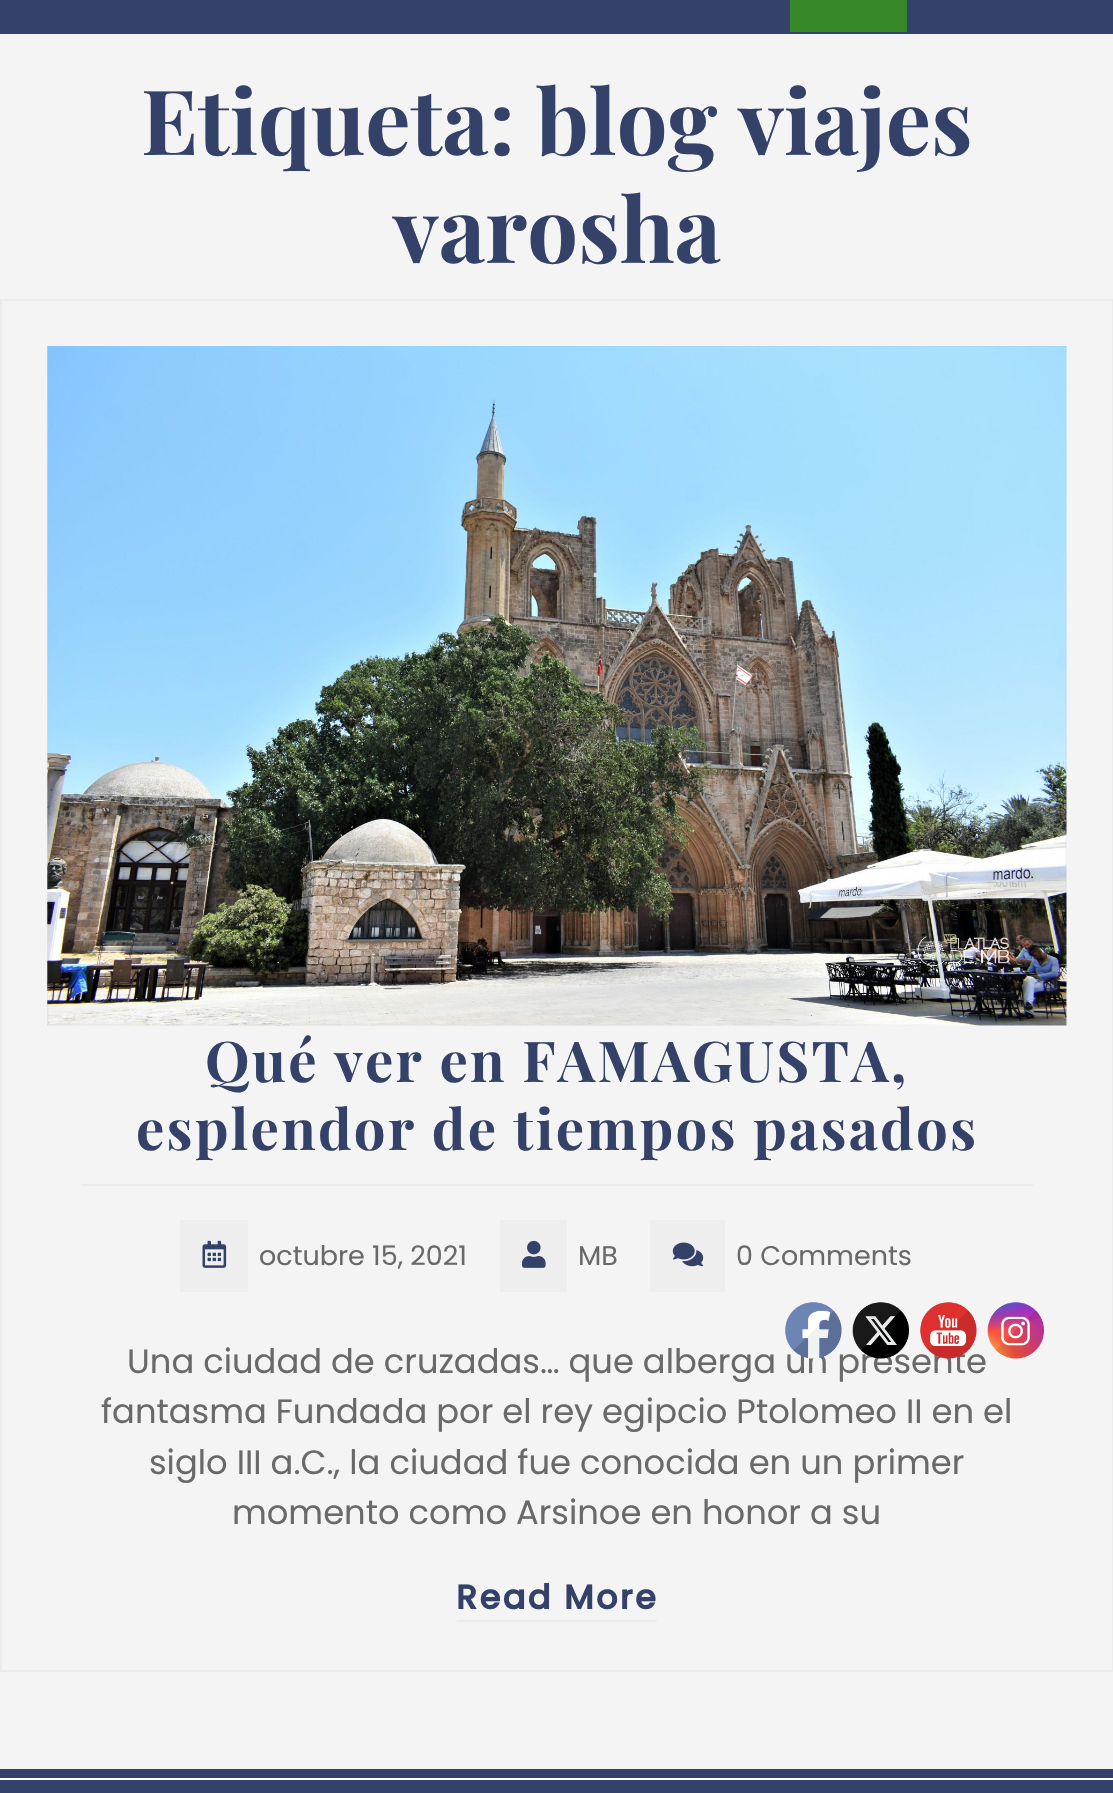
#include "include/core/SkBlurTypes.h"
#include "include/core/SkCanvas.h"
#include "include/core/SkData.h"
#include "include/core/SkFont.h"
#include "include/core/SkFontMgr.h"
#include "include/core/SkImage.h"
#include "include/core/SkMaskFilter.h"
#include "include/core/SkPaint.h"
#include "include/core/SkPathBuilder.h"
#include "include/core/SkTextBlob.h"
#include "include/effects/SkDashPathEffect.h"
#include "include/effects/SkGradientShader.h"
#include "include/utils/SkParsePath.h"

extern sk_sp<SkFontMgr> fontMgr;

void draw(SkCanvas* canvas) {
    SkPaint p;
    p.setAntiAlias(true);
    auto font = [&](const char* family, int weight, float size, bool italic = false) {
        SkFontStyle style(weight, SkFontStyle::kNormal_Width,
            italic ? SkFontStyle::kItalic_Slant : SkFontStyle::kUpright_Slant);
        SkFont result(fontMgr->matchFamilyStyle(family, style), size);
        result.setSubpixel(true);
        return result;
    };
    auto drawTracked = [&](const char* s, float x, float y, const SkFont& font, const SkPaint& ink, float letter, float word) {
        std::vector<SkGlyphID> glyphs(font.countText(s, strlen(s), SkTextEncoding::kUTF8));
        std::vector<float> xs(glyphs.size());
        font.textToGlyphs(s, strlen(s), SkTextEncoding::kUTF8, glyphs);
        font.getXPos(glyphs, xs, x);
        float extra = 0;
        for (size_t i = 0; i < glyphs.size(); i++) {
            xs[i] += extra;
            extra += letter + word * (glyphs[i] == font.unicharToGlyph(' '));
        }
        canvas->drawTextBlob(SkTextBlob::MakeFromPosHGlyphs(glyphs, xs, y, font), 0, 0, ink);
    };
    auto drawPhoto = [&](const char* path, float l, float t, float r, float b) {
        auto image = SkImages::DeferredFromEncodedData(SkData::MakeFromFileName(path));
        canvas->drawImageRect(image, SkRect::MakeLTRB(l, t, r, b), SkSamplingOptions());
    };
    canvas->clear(0xFFF4F4F4);
    p.setColor(0xFF344269);
    canvas->drawRect(SkRect::MakeLTRB(0, 0, 1113, 34), p);
    p.setColor(0xFF368728);
    canvas->drawRect(SkRect::MakeLTRB(790, 0, 907, 32), p);
    auto font1 = font("Playfair Display", 700, 90);
    p.setColor(0xFF344269);
    canvas->drawString("Etiqueta: blog viajes", 141, 155, font1, p);
    canvas->drawString("varosha", 393, 263, font1, p);
    p.setStyle(SkPaint::kStroke_Style);
    p.setStrokeWidth(2);
    p.setColor(0xFFEBEBEB);
    canvas->drawRect(SkRect::MakeLTRB(1, 300, 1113, 1671), p);
    drawPhoto("media/1.png", 47, 346, 1067, 1026);
    p.setStyle(SkPaint::kFill_Style);
    canvas->drawRect(SkRect::MakeLTRB(81, 1184, 1033, 1186), p);
    auto font2 = font("Playfair Display", 700, 56.25f);
    p.setColor(0xFF344269);
    drawTracked("Qué ver en FAMAGUSTA,", 205, 1082, font2, p, 2.25f, 0);
    drawTracked("esplendor de tiempos pasados", 136, 1150, font2, p, 2.25f, 0);
    p.setColor(0xFFEEEEEE);
    canvas->drawRect(SkRect::MakeLTRB(180, 1220, 248, 1292), p);
    drawPhoto("media/2.png", 202, 1240, 227, 1268);
    auto font3 = font("Poppins", 400, 27);
    p.setColor(0xFF696969);
    canvas->drawString("octubre 15, 2021", 259, 1265, font3, p);
    p.setColor(0xFFEEEEEE);
    canvas->drawRect(SkRect::MakeLTRB(500, 1220, 567, 1292), p);
    drawPhoto("media/3.png", 522, 1240, 546, 1268);
    p.setColor(0xFF696969);
    canvas->drawString("MB", 578, 1265, font3, p);
    p.setColor(0xFFEEEEEE);
    canvas->drawRect(SkRect::MakeLTRB(650, 1220, 725, 1292), p);
    drawPhoto("media/4.png", 672, 1242, 704, 1267);
    p.setColor(0xFF696969);
    canvas->drawString("0 Comments", 736, 1265, font3, p);
    auto font4 = font("Poppins", 400, 33.75f);
    {
        const struct { const char* s; float x, y; } items[] = {
            {"Una ciudad de cruzadas… que alberga un presente", 127, 1373},
            {"fantasma Fundada por el rey egipcio Ptolomeo II en el", 101, 1423},
            {"siglo III a.C., la ciudad fue conocida en un primer", 149, 1474},
            {"momento como Arsinoe en honor a su", 232, 1524},
        };
        for (auto [s, x, y] : items) {
            canvas->drawString(s, x, y, font4, p);
        }
    }
    auto font5 = font("Poppins", 700, 33.75f);
    p.setColor(0xFF344269);
    drawTracked("Read More", 456, 1609, font5, p, 2.25f, 0);
    p.setColor(0xFFEBEBEB);
    canvas->drawRect(SkRect::MakeLTRB(457, 1620, 657, 1622), p);
    drawPhoto("media/5.png", 785, 1302, 842, 1359);
    drawPhoto("media/6.png", 852, 1302, 909, 1359);
    drawPhoto("media/7.png", 920, 1302, 977, 1359);
    drawPhoto("media/8.png", 987, 1302, 1044, 1359);
    p.setColor(0xFF344269);
    canvas->drawRect(SkRect::MakeLTRB(0, 1769, 1113, 1793), p);
    p.setColor(0xFFFFFFFF);
    canvas->drawRect(SkRect::MakeLTRB(0, 1778, 1113, 1780), p);
}
